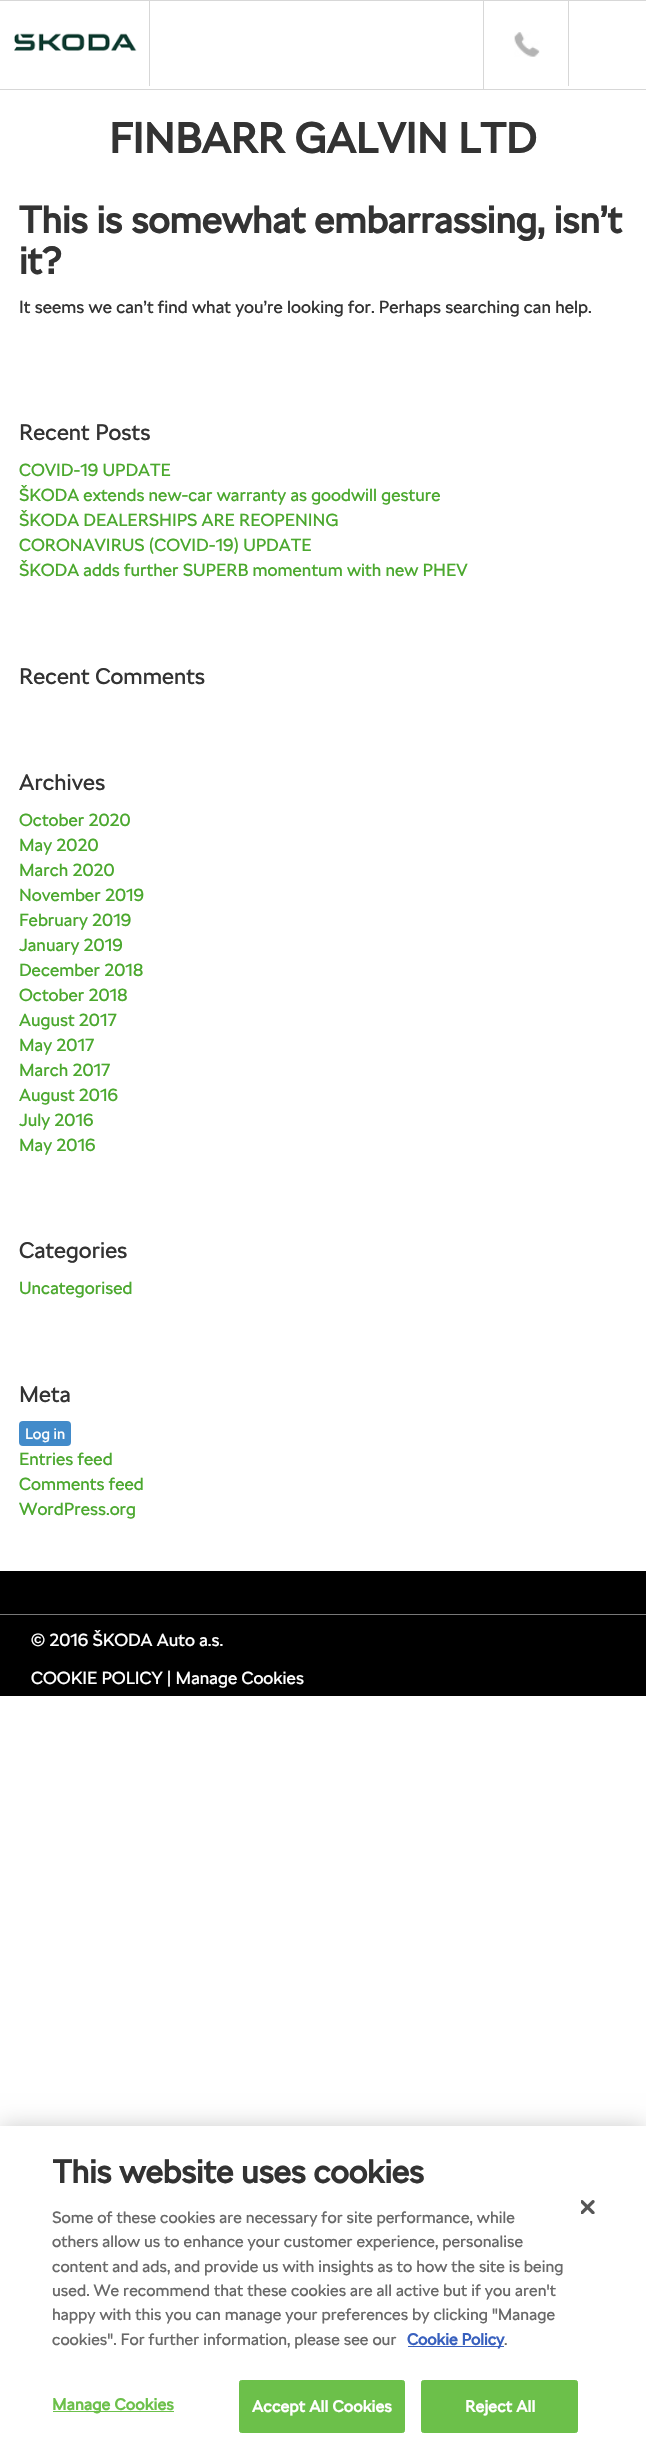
#include "include/core/SkBlurTypes.h"
#include "include/core/SkCanvas.h"
#include "include/core/SkData.h"
#include "include/core/SkFont.h"
#include "include/core/SkFontMgr.h"
#include "include/core/SkImage.h"
#include "include/core/SkMaskFilter.h"
#include "include/core/SkPaint.h"
#include "include/core/SkPathBuilder.h"
#include "include/core/SkTextBlob.h"
#include "include/effects/SkDashPathEffect.h"
#include "include/effects/SkGradientShader.h"
#include "include/utils/SkParsePath.h"

extern sk_sp<SkFontMgr> fontMgr;

void draw(SkCanvas* canvas) {
    SkPaint p;
    p.setAntiAlias(true);
    auto font = [&](const char* family, int weight, float size, bool italic = false) {
        SkFontStyle style(weight, SkFontStyle::kNormal_Width,
            italic ? SkFontStyle::kItalic_Slant : SkFontStyle::kUpright_Slant);
        SkFont result(fontMgr->matchFamilyStyle(family, style), size);
        result.setSubpixel(true);
        return result;
    };
    auto drawTracked = [&](const char* s, float x, float y, const SkFont& font, const SkPaint& ink, float letter, float word) {
        std::vector<SkGlyphID> glyphs(font.countText(s, strlen(s), SkTextEncoding::kUTF8));
        std::vector<float> xs(glyphs.size());
        font.textToGlyphs(s, strlen(s), SkTextEncoding::kUTF8, glyphs);
        font.getXPos(glyphs, xs, x);
        float extra = 0;
        for (size_t i = 0; i < glyphs.size(); i++) {
            xs[i] += extra;
            extra += letter + word * (glyphs[i] == font.unicharToGlyph(' '));
        }
        canvas->drawTextBlob(SkTextBlob::MakeFromPosHGlyphs(glyphs, xs, y, font), 0, 0, ink);
    };
    auto drawPhoto = [&](const char* path, float l, float t, float r, float b) {
        auto image = SkImages::DeferredFromEncodedData(SkData::MakeFromFileName(path));
        canvas->drawImageRect(image, SkRect::MakeLTRB(l, t, r, b), SkSamplingOptions());
    };
    canvas->clear(0xFFFFFFFF);
    {
        const struct { float l, t, r, b; SkColor color; } items[] = {
            {0, 0, 646, 1, 0xFFD7D7D7},
            {0, 89, 646, 90, 0xFFD7D7D7},
            {149, 1, 150, 86, 0xFFD7D7D7},
        };
        for (auto [l, t, r, b, color] : items) {
            p.setColor(color);
            canvas->drawRect(SkRect::MakeLTRB(l, t, r, b), p);
        }
    }
    drawPhoto("media/1.png", 14, 33, 137, 51);
    canvas->drawRect(SkRect::MakeLTRB(483, 1, 484, 89), p);
    canvas->drawRect(SkRect::MakeLTRB(568, 1, 569, 86), p);
    drawPhoto("media/2.png", 514, 32, 540, 57);
    auto font1 = font("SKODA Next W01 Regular", 700, 42.5f);
    p.setColor(0xFF333333);
    canvas->drawString("FINBARR GALVIN LTD", 109, 153, font1, p);
    auto font2 = font("SKODA Next W01 Regular", 700, 37.5f);
    canvas->drawString("This is somewhat embarrassing, isn’t", 19, 233, font2, p);
    canvas->drawString("it?", 19, 274, font2, p);
    auto font3 = font("SKODA Next W01 Regular", 400, 17.5f);
    canvas->drawString("It seems we can’t find what you’re looking for. Perhaps searching can help.", 19, 313, font3, p);
    auto font4 = font("SKODA Next W01 Regular", 400, 22.5f);
    canvas->drawString("Recent Posts", 19, 440, font4, p);
    p.setColor(0xFF4BA82E);
    {
        const struct { const char* s; float x, y; } items[] = {
            {"COVID-19 UPDATE", 19, 476},
            {"ŠKODA extends new-car warranty as goodwill gesture", 19, 501},
            {"ŠKODA DEALERSHIPS ARE REOPENING", 19, 526},
            {"CORONAVIRUS (COVID-19) UPDATE", 19, 551},
            {"ŠKODA adds further SUPERB momentum with new PHEV", 19, 576},
        };
        for (auto [s, x, y] : items) {
            canvas->drawString(s, x, y, font3, p);
        }
    }
    p.setColor(0xFF333333);
    canvas->drawString("Recent Comments", 19, 684, font4, p);
    canvas->drawString("Archives", 19, 790, font4, p);
    p.setColor(0xFF4BA82E);
    {
        const struct { const char* s; float x, y; } items[] = {
            {"October 2020", 19, 826},
            {"May 2020", 19, 851},
            {"March 2020", 19, 876},
            {"November 2019", 19, 901},
            {"February 2019", 19, 926},
            {"January 2019", 19, 951},
            {"December 2018", 19, 976},
            {"October 2018", 19, 1001},
            {"August 2017", 19, 1026},
            {"May 2017", 19, 1051},
            {"March 2017", 19, 1076},
            {"August 2016", 19, 1101},
            {"July 2016", 19, 1126},
            {"May 2016", 19, 1151},
        };
        for (auto [s, x, y] : items) {
            canvas->drawString(s, x, y, font3, p);
        }
    }
    p.setColor(0xFF333333);
    canvas->drawString("Categories", 19, 1258, font4, p);
    p.setColor(0xFF4BA82E);
    canvas->drawString("Uncategorised", 19, 1294, font3, p);
    p.setColor(0xFF333333);
    canvas->drawString("Meta", 19, 1402, font4, p);
    p.setColor(0xFF428BCA);
    canvas->drawRoundRect(SkRect::MakeLTRB(19, 1421, 71, 1446), 4, 4, p);
    auto font5 = font("SKODA Next W01 Regular", 400, 15);
    p.setColor(0xFFFFFFFF);
    canvas->drawString("Log in", 25, 1439, font5, p);
    p.setColor(0xFF4BA82E);
    {
        const struct { const char* s; float x, y; } items[] = {
            {"Entries feed", 19, 1465},
            {"Comments feed", 19, 1490},
            {"WordPress.org", 19, 1515},
        };
        for (auto [s, x, y] : items) {
            canvas->drawString(s, x, y, font3, p);
        }
    }
    p.setColor(0xFF000000);
    canvas->drawRect(SkRect::MakeLTRB(0, 1571, 646, 1696), p);
    p.setColor(0xFF787878);
    canvas->drawRect(SkRect::MakeLTRB(0, 1614, 646, 1615), p);
    p.setColor(0xFFFFFFFF);
    canvas->drawString("© 2016 ŠKODA Auto a.s.", 31, 1646, font3, p);
    canvas->drawString("COOKIE POLICY | Manage Cookies", 31, 1684, font3, p);
    p.setColor(0x33000000);
    p.setMaskFilter(SkMaskFilter::MakeBlur(kNormal_SkBlurStyle, 11));
    canvas->drawRect(SkRect::MakeLTRB(0, 2126, 646, 2450), p);
    p.setMaskFilter(nullptr);
    p.setColor(0xFFFFFFFF);
    canvas->drawRect(SkRect::MakeLTRB(0, 2126, 646, 2450), p);
    canvas->save();
    canvas->clipRect(SkRect::MakeLTRB(53, 2151, 565, 2368));
    auto font6 = font("SKODA Next W01 Regular", 700, 32.5f);
    p.setColor(0xFF333333);
    canvas->drawString("This website uses cookies", 52, 2183, font6, p);
    canvas->restore();
    auto font7 = font("SKODA Next W01 Regular", 400, 16.25f);
    p.setColor(0xFF696969);
    {
        const struct { const char* s; float x, y; } items[] = {
            {"Some of these cookies are necessary for site performance, while", 52, 2223},
            {"others allow us to enhance your customer experience, personalise", 52, 2247},
            {"content and ads, and provide us with insights as to how the site is being", 52, 2272},
            {"used. We recommend that these cookies are all active but if you aren't", 52, 2296},
            {"happy with this you can manage your preferences by clicking \"Manage", 52, 2320},
            {"cookies\". For further information, please see our", 52, 2345},
        };
        for (auto [s, x, y] : items) {
            canvas->drawString(s, x, y, font7, p);
        }
    }
    p.setColor(0xFF3860BE);
    canvas->drawRect(SkRect::MakeLTRB(408, 2346, 504, 2347), p);
    auto font8 = font("SKODA Next W01 Regular", 700, 16.25f);
    canvas->drawString("Cookie Policy", 407, 2345, font8, p);
    p.setColor(0xFF696969);
    canvas->drawString(".", 504, 2345, font7, p);
    drawPhoto("media/3.png", 581, 2200, 595, 2214);
    p.setColor(0xFF6CC04A);
    canvas->drawRect(SkRect::MakeLTRB(53, 2411, 174, 2412), p);
    drawTracked("Manage Cookies", 52, 2410, font8, p, 0.2f, 0);
    canvas->drawRoundRect(SkRect::MakeLTRB(239.5f, 2380.5f, 404.5f, 2432.5f), 2, 2, p);
    p.setStyle(SkPaint::kStroke_Style);
    p.setStrokeWidth(1);
    canvas->drawRoundRect(SkRect::MakeLTRB(239.5f, 2380.5f, 404.5f, 2432.5f), 2, 2, p);
    p.setStyle(SkPaint::kFill_Style);
    p.setColor(0xFFFFFFFF);
    drawTracked("Accept All Cookies", 252, 2412, font8, p, 0.2f, 0);
    p.setColor(0xFF6CC04A);
    canvas->drawRoundRect(SkRect::MakeLTRB(421.5f, 2380.5f, 577.5f, 2432.5f), 2, 2, p);
    p.setStyle(SkPaint::kStroke_Style);
    canvas->drawRoundRect(SkRect::MakeLTRB(421.5f, 2380.5f, 577.5f, 2432.5f), 2, 2, p);
    p.setStyle(SkPaint::kFill_Style);
    p.setColor(0xFFFFFFFF);
    drawTracked("Reject All", 465, 2412, font8, p, 0.2f, 0);
}
